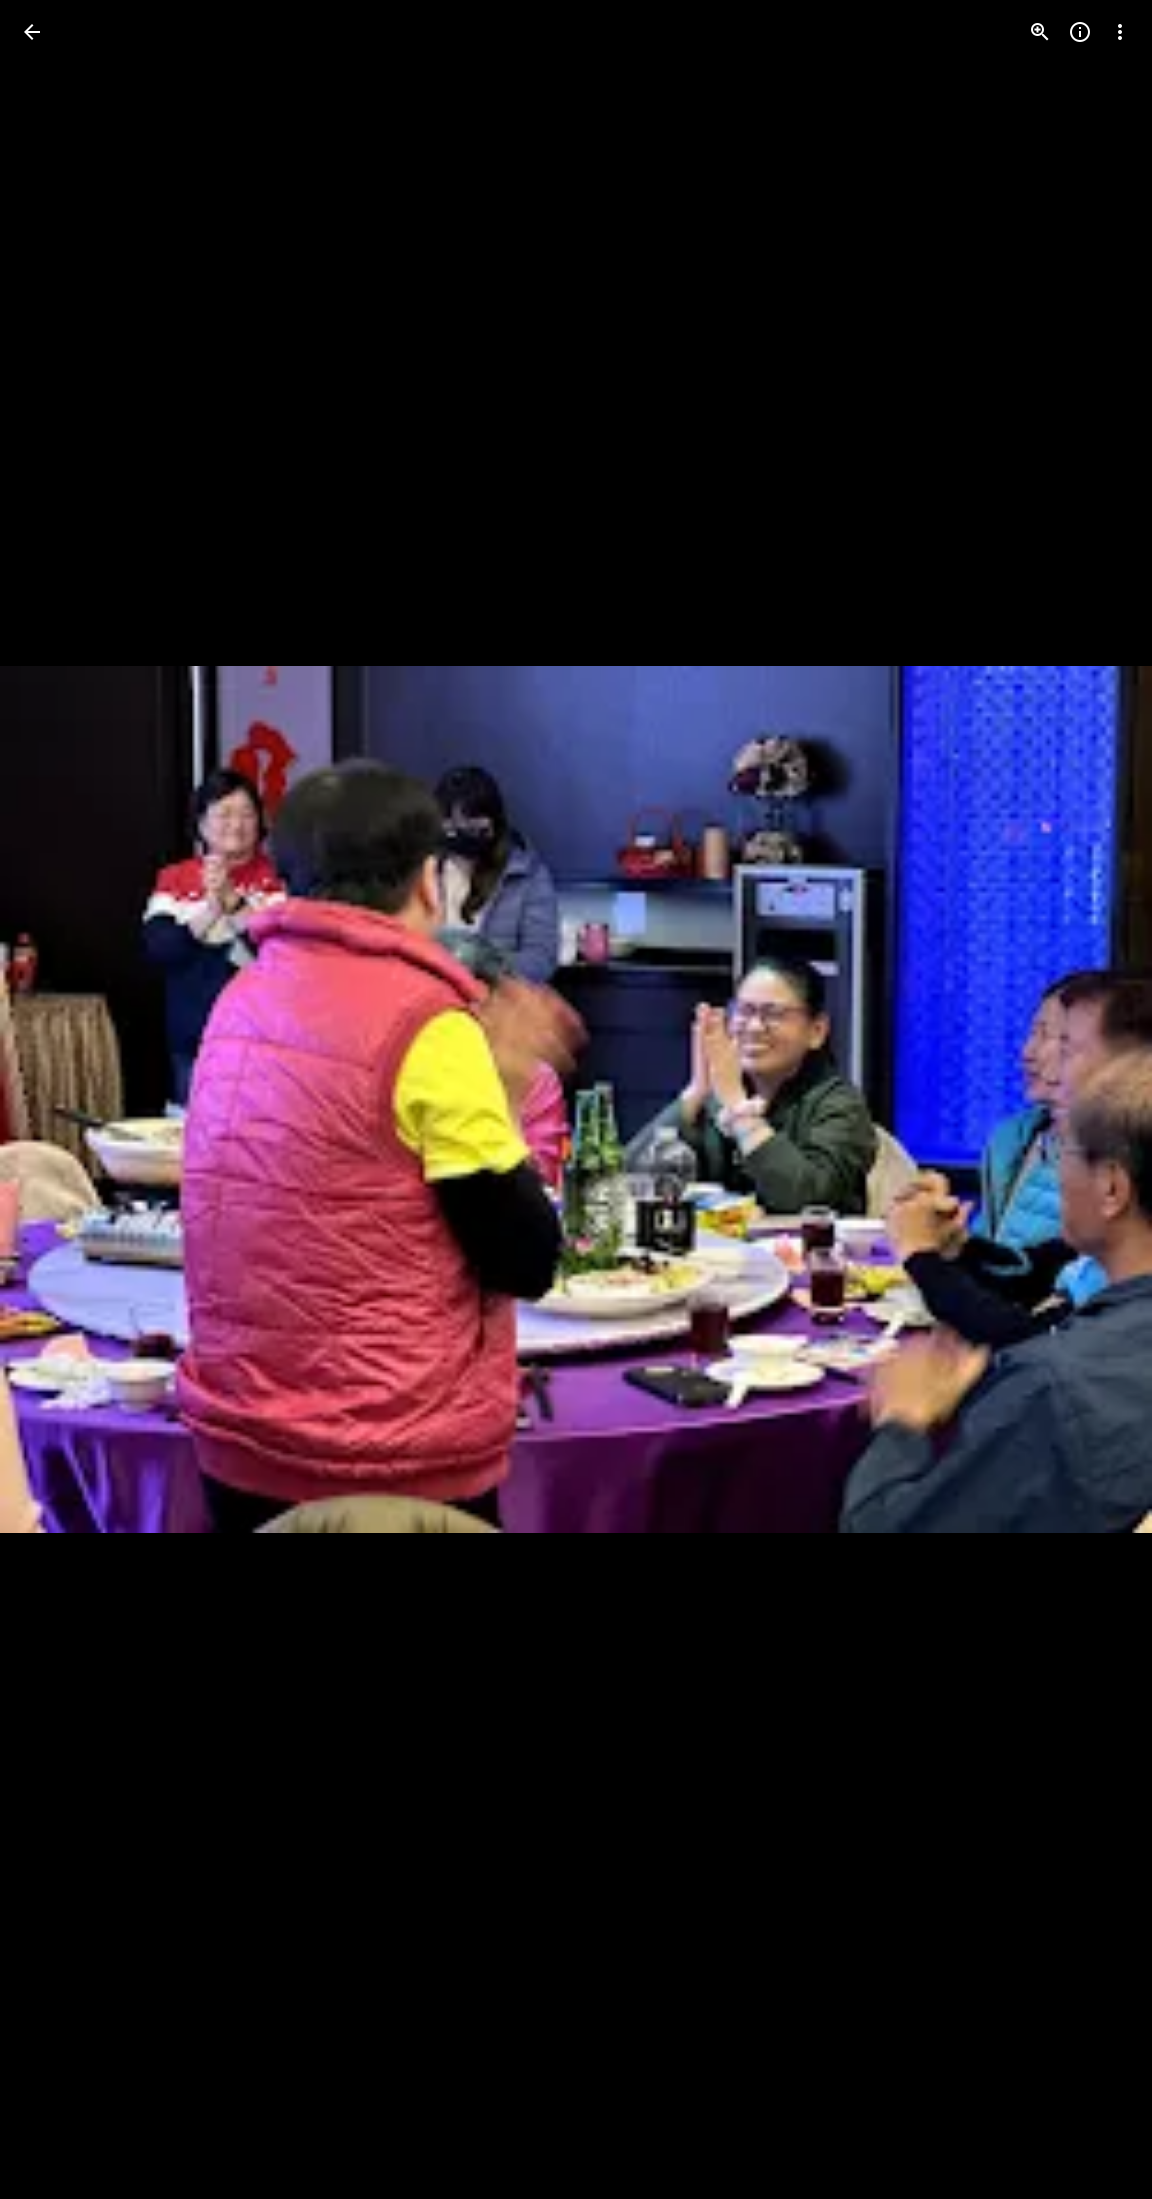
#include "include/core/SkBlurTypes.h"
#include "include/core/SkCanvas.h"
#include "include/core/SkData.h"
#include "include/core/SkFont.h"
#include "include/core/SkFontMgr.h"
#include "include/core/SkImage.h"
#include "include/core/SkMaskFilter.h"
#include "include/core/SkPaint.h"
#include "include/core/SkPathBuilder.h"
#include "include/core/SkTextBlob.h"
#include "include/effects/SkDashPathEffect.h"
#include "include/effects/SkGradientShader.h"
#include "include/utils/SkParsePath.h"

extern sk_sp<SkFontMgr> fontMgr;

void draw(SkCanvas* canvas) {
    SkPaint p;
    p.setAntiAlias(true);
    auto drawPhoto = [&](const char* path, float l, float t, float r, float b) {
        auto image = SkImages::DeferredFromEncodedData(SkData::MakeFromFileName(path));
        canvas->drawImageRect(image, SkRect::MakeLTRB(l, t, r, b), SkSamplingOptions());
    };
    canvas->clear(0xFF000000);
    drawPhoto("media/1.png", 24, 24, 40, 40);
    drawPhoto("media/2.png", 1031, 23, 1049, 41);
    drawPhoto("media/3.png", 1070, 22, 1090, 42);
    drawPhoto("media/4.png", 1118, 24, 1122, 40);
    drawPhoto("media/5.png", 0, 666, 1152, 1533);
}
